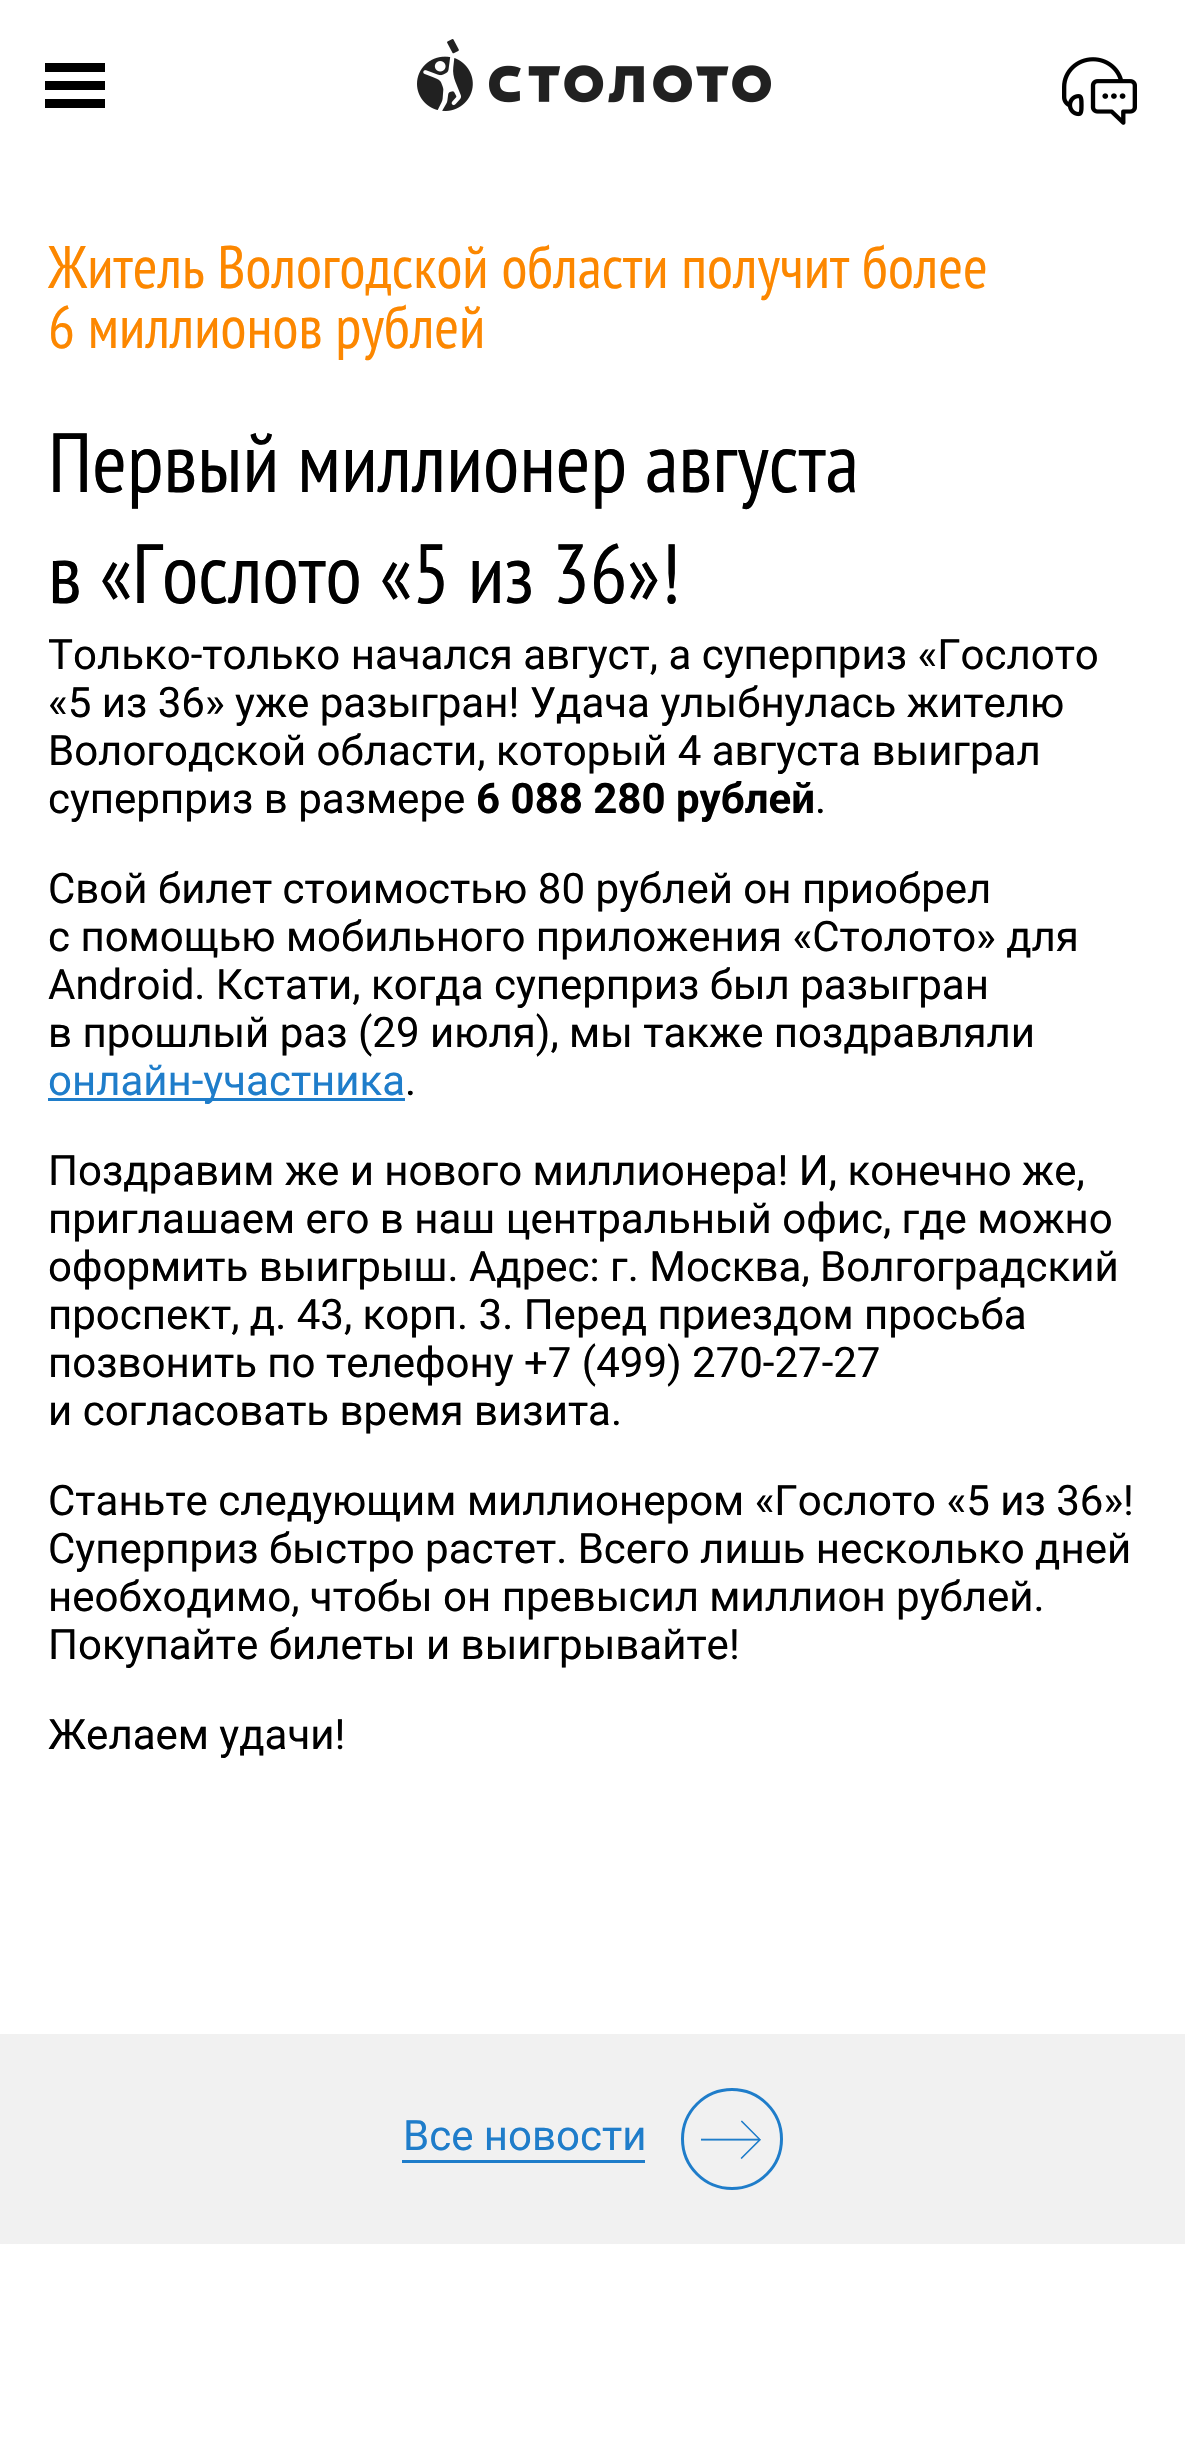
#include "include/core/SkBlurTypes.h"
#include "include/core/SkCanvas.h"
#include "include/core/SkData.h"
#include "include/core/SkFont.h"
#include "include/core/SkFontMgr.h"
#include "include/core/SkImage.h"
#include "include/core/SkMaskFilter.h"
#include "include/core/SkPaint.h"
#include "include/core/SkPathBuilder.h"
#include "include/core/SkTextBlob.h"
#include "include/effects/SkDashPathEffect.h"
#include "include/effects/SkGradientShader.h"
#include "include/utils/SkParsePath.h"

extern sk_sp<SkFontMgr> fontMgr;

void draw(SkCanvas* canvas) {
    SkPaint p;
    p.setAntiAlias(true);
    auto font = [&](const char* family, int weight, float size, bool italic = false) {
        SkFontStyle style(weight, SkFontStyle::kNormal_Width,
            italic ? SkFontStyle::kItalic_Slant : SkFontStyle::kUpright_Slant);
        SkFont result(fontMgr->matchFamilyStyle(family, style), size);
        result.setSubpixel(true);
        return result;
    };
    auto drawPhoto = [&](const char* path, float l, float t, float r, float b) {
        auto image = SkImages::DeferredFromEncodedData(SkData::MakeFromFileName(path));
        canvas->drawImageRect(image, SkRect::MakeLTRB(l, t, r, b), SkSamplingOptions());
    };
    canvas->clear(0xFFFFFFFF);
    {
        const struct { float l, t, r, b; SkColor color; } items[] = {
            {45, 63, 105, 72, 0xFF000000},
            {45, 81, 105, 90, 0xFF000000},
            {45, 99, 105, 108, 0xFF000000},
        };
        for (auto [l, t, r, b, color] : items) {
            p.setColor(color);
            canvas->drawRect(SkRect::MakeLTRB(l, t, r, b), p);
        }
    }
    drawPhoto("media/1.png", 417, 39, 771, 111);
    drawPhoto("media/2.png", 1062, 57, 1137, 125);
    auto font1 = font("PT Sans Narrow", 400, 60);
    p.setColor(0xFFFC8700);
    canvas->drawString("Житель Вологодской области получит более", 48, 288, font1, p);
    canvas->drawString("6 миллионов рублей", 48, 348, font1, p);
    auto font2 = font("PT Sans Narrow", 400, 84);
    p.setColor(0xFF000000);
    canvas->drawString("Первый миллионер августа", 48, 492, font2, p);
    canvas->drawString("в «Гослото «5 из 36»!", 48, 603, font2, p);
    auto font3 = font("Roboto", 400, 42);
    {
        const struct { const char* s; float x, y; } items[] = {
            {"Только-только начался август, а суперприз «Гослото", 48, 669},
            {"«5 из 36» уже разыгран! Удача улыбнулась жителю", 48, 717},
            {"Вологодской области, который 4 августа выиграл", 48, 765},
            {"суперприз в размере", 48, 813},
        };
        for (auto [s, x, y] : items) {
            canvas->drawString(s, x, y, font3, p);
        }
    }
    auto font4 = font("Roboto", 700, 42);
    canvas->drawString("6 088 280 рублей", 476, 813, font4, p);
    {
        const struct { const char* s; float x, y; } items[] = {
            {".", 815, 813},
            {"Свой билет стоимостью 80 рублей он приобрел", 48, 903},
            {"с помощью мобильного приложения «Столото» для", 48, 951},
            {"Android. Кстати, когда суперприз был разыгран", 48, 999},
            {"в прошлый раз (29 июля), мы также поздравляли", 48, 1047},
        };
        for (auto [s, x, y] : items) {
            canvas->drawString(s, x, y, font3, p);
        }
    }
    p.setColor(0xFF1F7DCA);
    canvas->drawRect(SkRect::MakeLTRB(48, 1098, 405, 1101), p);
    canvas->drawString("онлайн-участника", 48, 1095, font3, p);
    p.setColor(0xFF000000);
    {
        const struct { const char* s; float x, y; } items[] = {
            {".", 405, 1095},
            {"Поздравим же и нового миллионера! И, конечно же,", 48, 1185},
            {"приглашаем его в наш центральный офис, где можно", 48, 1233},
            {"оформить выигрыш. Адрес: г. Москва, Волгоградский", 48, 1281},
            {"проспект, д. 43, корп. 3. Перед приездом просьба", 48, 1329},
            {"позвонить по телефону +7 (499) 270-27-27", 48, 1377},
            {"и согласовать время визита.", 48, 1425},
            {"Станьте следующим миллионером «Гослото «5 из 36»!", 48, 1515},
            {"Суперприз быстро растет. Всего лишь несколько дней", 48, 1563},
            {"необходимо, чтобы он превысил миллион рублей.", 48, 1611},
            {"Покупайте билеты и выигрывайте!", 48, 1659},
            {"Желаем удачи!", 48, 1749},
        };
        for (auto [s, x, y] : items) {
            canvas->drawString(s, x, y, font3, p);
        }
    }
    p.setColor(0xFFF1F1F1);
    canvas->drawRect(SkRect::MakeLTRB(0, 2034, 1185, 2244), p);
    p.setColor(0xFF1F7DCA);
    canvas->drawString("Все новости", 403, 2150, font3, p);
    canvas->drawRect(SkRect::MakeLTRB(402, 2160, 645, 2163), p);
    p.setStyle(SkPaint::kStroke_Style);
    p.setStrokeWidth(3);
    canvas->drawCircle(732, 2139, 49.5f, p);
    auto font5 = font("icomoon", 400, 60);
    p.setStyle(SkPaint::kFill_Style);
    canvas->drawString("→", 701, 2166, font5, p);
}
